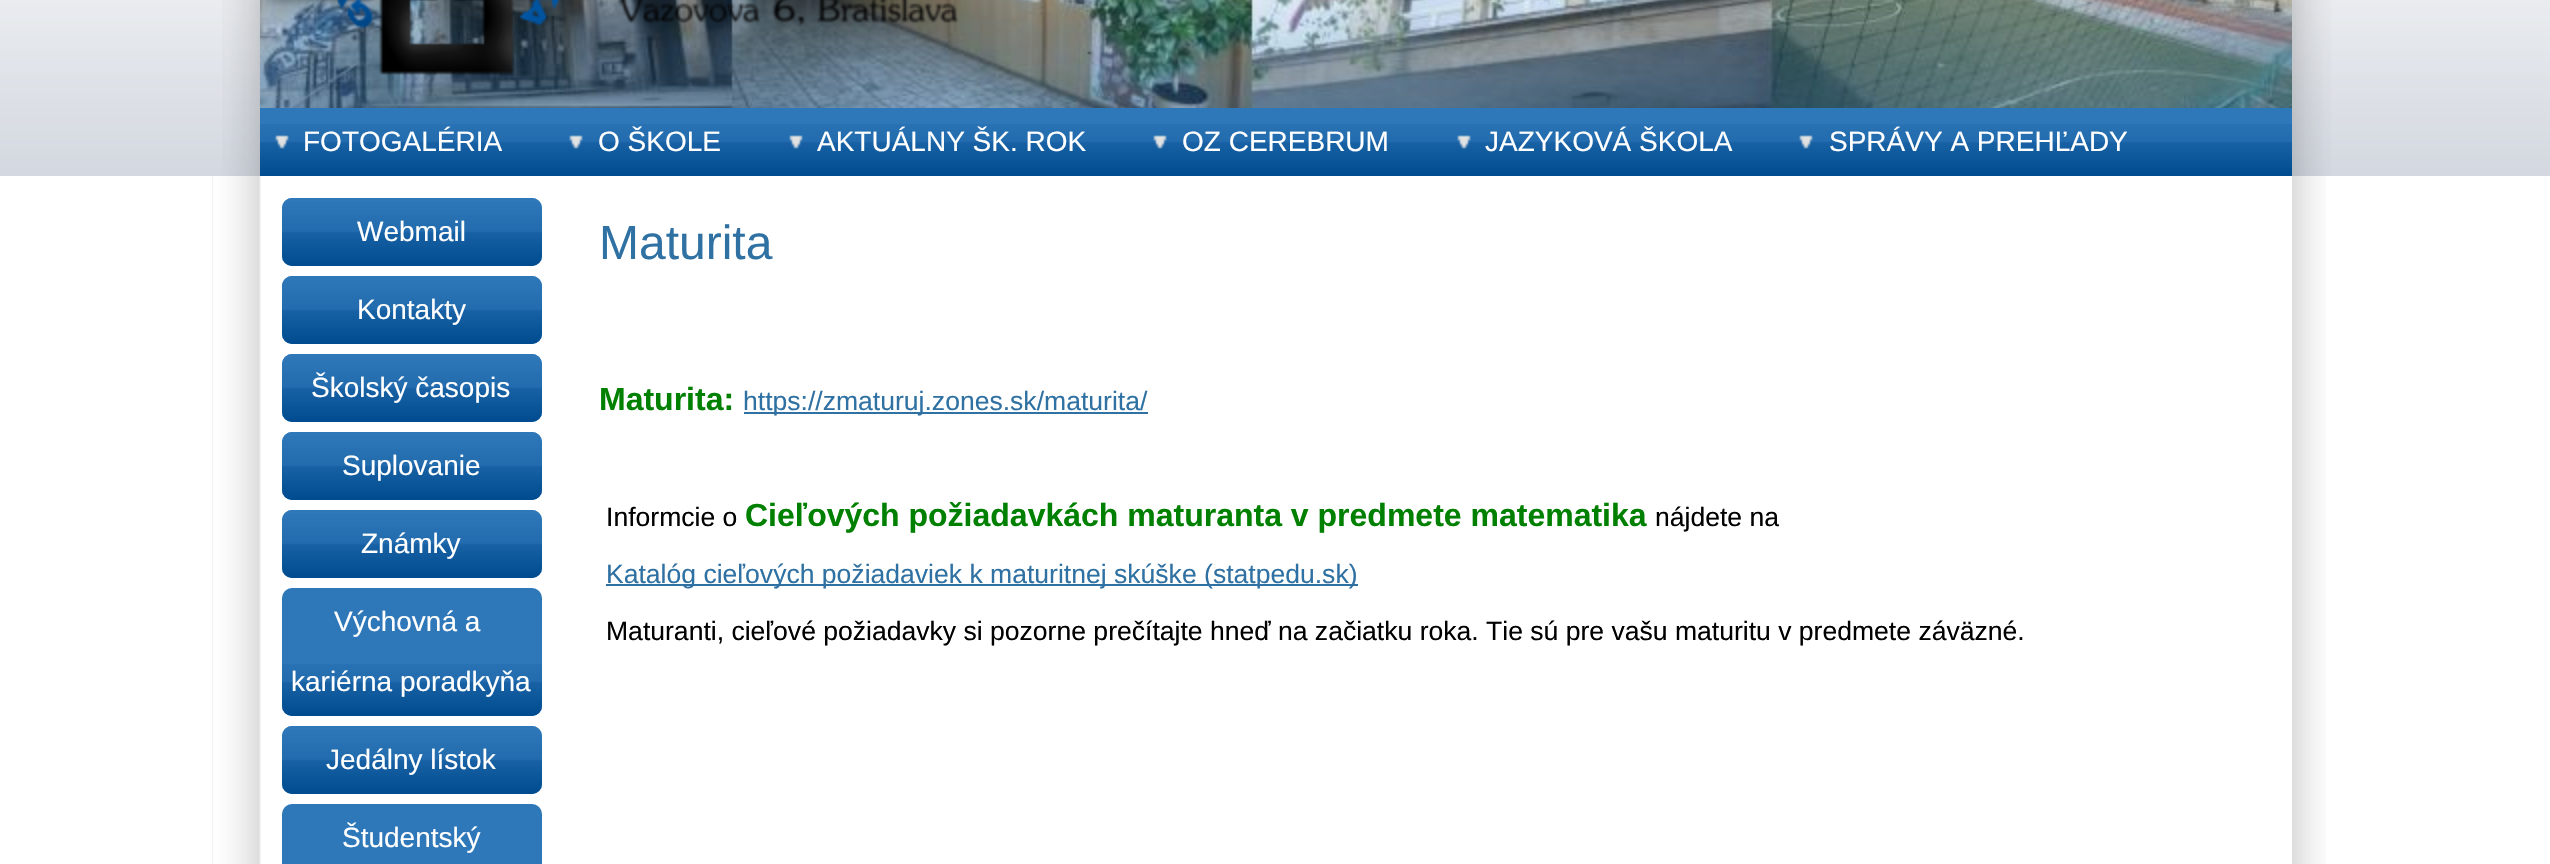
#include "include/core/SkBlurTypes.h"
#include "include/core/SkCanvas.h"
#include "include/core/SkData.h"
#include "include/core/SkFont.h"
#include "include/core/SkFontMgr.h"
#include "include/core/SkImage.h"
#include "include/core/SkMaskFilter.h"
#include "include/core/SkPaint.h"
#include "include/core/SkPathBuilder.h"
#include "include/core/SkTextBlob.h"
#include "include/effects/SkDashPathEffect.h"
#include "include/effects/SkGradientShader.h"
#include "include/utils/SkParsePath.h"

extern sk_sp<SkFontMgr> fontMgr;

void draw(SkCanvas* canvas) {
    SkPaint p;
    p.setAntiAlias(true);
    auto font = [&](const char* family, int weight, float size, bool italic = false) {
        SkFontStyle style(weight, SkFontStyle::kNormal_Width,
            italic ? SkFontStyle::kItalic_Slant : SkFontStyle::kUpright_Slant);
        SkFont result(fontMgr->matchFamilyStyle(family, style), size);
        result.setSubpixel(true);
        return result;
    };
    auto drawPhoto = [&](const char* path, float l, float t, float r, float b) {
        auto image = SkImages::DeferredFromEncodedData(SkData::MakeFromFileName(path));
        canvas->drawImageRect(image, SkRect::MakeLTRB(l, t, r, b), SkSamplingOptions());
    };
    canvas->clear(0xFFFFFFFF);
    drawPhoto("media/1.png", 0, 0, 2550, 176);
    drawPhoto("media/2.png", 222, 0, 260, 176);
    drawPhoto("media/3.png", 2292, 0, 2331, 176);
    drawPhoto("media/4.png", 260, 0, 2292, 108);
    drawPhoto("media/5.png", 336, 0, 1093, 75);
    p.setColor(0xFF2E77B9);
    canvas->drawRect(SkRect::MakeLTRB(260, 108, 2292, 124), p);
    drawPhoto("media/6.png", 260, 124, 2292, 176);
    drawPhoto("media/7.png", 275, 135, 289, 149);
    auto font1 = font("Liberation Sans", 400, 28);
    p.setColor(0xFFFFFFFF);
    canvas->drawString("FOTOGALÉRIA", 303, 151, font1, p);
    drawPhoto("media/7.png", 569, 135, 583, 149);
    canvas->drawString("O ŠKOLE", 598, 151, font1, p);
    drawPhoto("media/7.png", 789, 135, 803, 149);
    canvas->drawString("AKTUÁLNY ŠK. ROK", 817, 151, font1, p);
    drawPhoto("media/7.png", 1153, 135, 1167, 149);
    canvas->drawString("OZ CEREBRUM", 1182, 151, font1, p);
    drawPhoto("media/7.png", 1457, 135, 1471, 149);
    canvas->drawString("JAZYKOVÁ ŠKOLA", 1485, 151, font1, p);
    drawPhoto("media/7.png", 1799, 135, 1813, 149);
    canvas->drawString("SPRÁVY A PREHĽADY", 1829, 151, font1, p);
    drawPhoto("media/8.png", 212, 176, 261, 864);
    drawPhoto("media/9.png", 2292, 176, 2326, 864);
    p.setColor(0xFF2E77B9);
    canvas->drawRoundRect(SkRect::MakeLTRB(282, 198, 542, 266), 10, 10, p);
    drawPhoto("media/10.png", 282, 198, 542, 266);
    p.setColor(0xFFFFFFFF);
    canvas->drawString("Webmail", 357, 241, font1, p);
    p.setColor(0xFF2E77B9);
    canvas->drawRoundRect(SkRect::MakeLTRB(282, 276, 542, 344), 10, 10, p);
    drawPhoto("media/11.png", 282, 276, 542, 344);
    p.setColor(0xFFFFFFFF);
    canvas->drawString("Kontakty", 357, 319, font1, p);
    p.setColor(0xFF2E77B9);
    canvas->drawRoundRect(SkRect::MakeLTRB(282, 354, 542, 422), 10, 10, p);
    drawPhoto("media/10.png", 282, 354, 542, 422);
    p.setColor(0xFFFFFFFF);
    canvas->drawString("Školský časopis", 311, 397, font1, p);
    p.setColor(0xFF2E77B9);
    canvas->drawRoundRect(SkRect::MakeLTRB(282, 432, 542, 500), 10, 10, p);
    drawPhoto("media/10.png", 282, 432, 542, 500);
    p.setColor(0xFFFFFFFF);
    canvas->drawString("Suplovanie", 342, 475, font1, p);
    p.setColor(0xFF2E77B9);
    canvas->drawRoundRect(SkRect::MakeLTRB(282, 510, 542, 578), 10, 10, p);
    drawPhoto("media/10.png", 282, 510, 542, 578);
    p.setColor(0xFFFFFFFF);
    canvas->drawString("Známky", 361, 553, font1, p);
    p.setColor(0xFF2E77B9);
    canvas->drawRoundRect(SkRect::MakeLTRB(282, 588, 542, 716), 10, 10, p);
    drawPhoto("media/12.png", 282, 664, 542, 716);
    p.setColor(0xFFFFFFFF);
    canvas->drawString("Výchovná a", 334, 631, font1, p);
    canvas->drawString("kariérna poradkyňa", 291, 691, font1, p);
    p.setColor(0xFF2E77B9);
    canvas->drawRoundRect(SkRect::MakeLTRB(282, 726, 542, 794), 10, 10, p);
    drawPhoto("media/10.png", 282, 726, 542, 794);
    p.setColor(0xFFFFFFFF);
    canvas->drawString("Jedálny lístok", 326, 769, font1, p);
    p.setColor(0xFF2E77B9);
    canvas->drawRoundRect(SkRect::MakeLTRB(282, 804, 542, 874), 10, 10, p);
    p.setColor(0xFFFFFFFF);
    canvas->drawString("Študentský", 342, 847, font1, p);
    auto font2 = font("Liberation Sans", 400, 48);
    p.setColor(0xFF2F71A2);
    canvas->drawString("Maturita", 599, 259, font2, p);
    auto font3 = font("Liberation Sans", 700, 32);
    p.setColor(0xFF008000);
    canvas->drawString("Maturita:", 599, 410, font3, p);
    p.setColor(0xFF2F71A2);
    canvas->drawRect(SkRect::MakeLTRB(744, 412, 1148, 414), p);
    auto font4 = font("Liberation Sans", 400, 26.55f);
    canvas->drawString("https://zmaturuj.zones.sk/maturita/", 743, 410, font4, p);
    p.setColor(0xFF000000);
    canvas->drawString("Informcie o", 606, 526, font4, p);
    p.setColor(0xFF008000);
    canvas->drawString("Cieľových požiadavkách maturanta v predmete matematika", 745, 526, font3, p);
    p.setColor(0xFF000000);
    canvas->drawString("nájdete na", 1655, 526, font4, p);
    p.setColor(0xFF2F71A2);
    canvas->drawRect(SkRect::MakeLTRB(606, 584, 1358, 586), p);
    canvas->drawString("Katalóg cieľových požiadaviek k maturitnej skúške (statpedu.sk)", 606, 583, font4, p);
    p.setColor(0xFF000000);
    canvas->drawString("Maturanti, cieľové požiadavky si pozorne prečítajte hneď na začiatku roka. Tie sú pre vašu maturitu v predmete záväzné.", 606, 640, font4, p);
}
